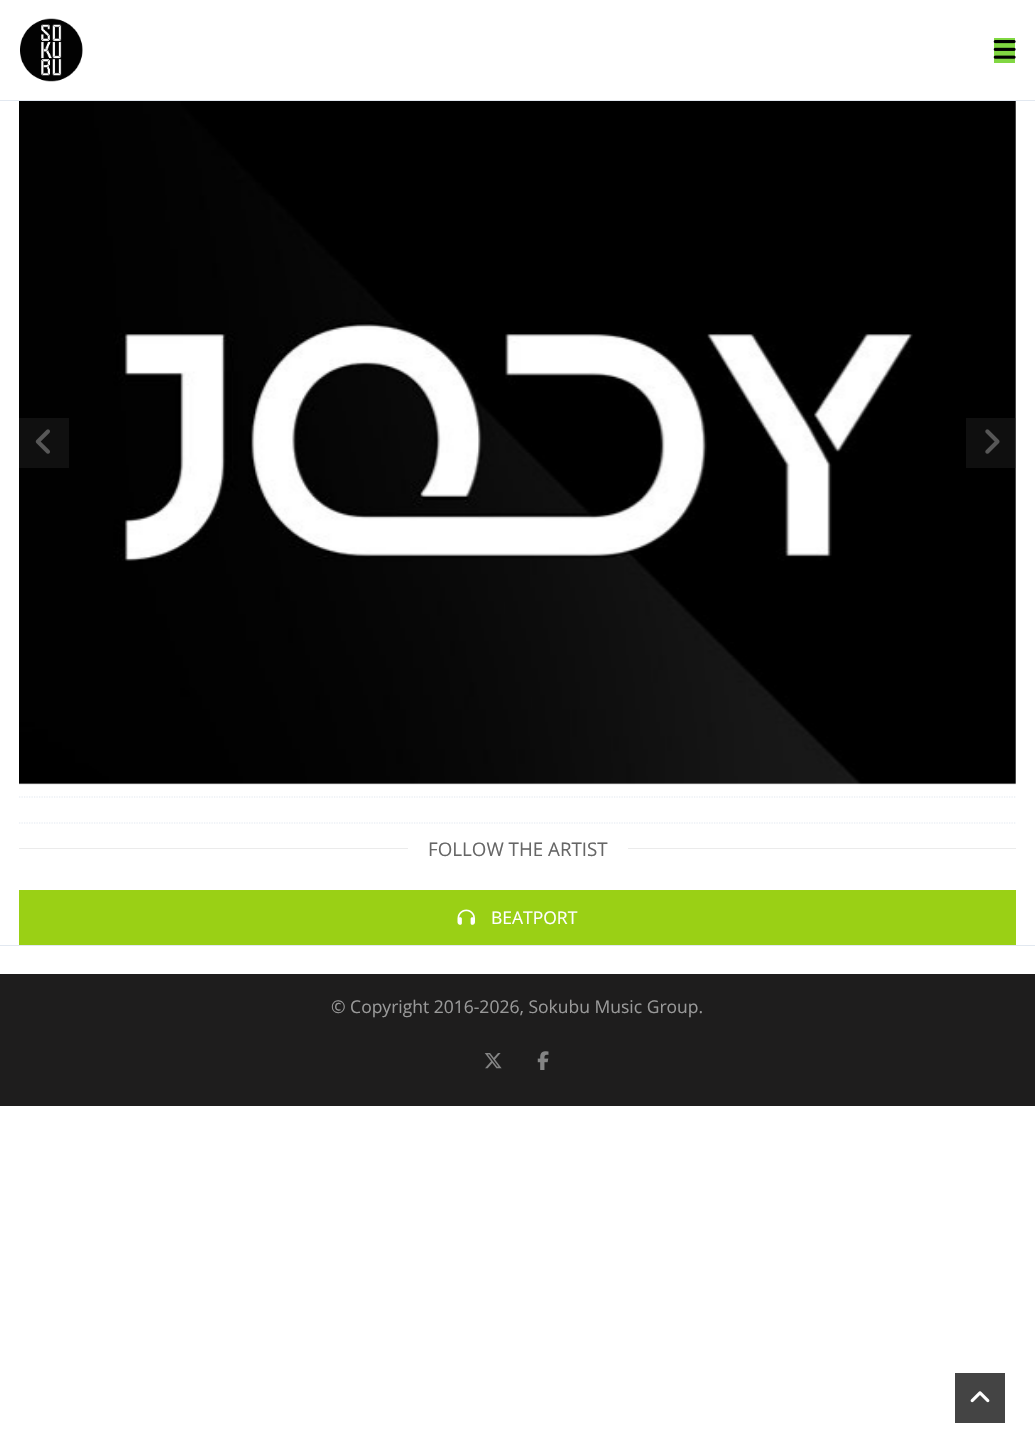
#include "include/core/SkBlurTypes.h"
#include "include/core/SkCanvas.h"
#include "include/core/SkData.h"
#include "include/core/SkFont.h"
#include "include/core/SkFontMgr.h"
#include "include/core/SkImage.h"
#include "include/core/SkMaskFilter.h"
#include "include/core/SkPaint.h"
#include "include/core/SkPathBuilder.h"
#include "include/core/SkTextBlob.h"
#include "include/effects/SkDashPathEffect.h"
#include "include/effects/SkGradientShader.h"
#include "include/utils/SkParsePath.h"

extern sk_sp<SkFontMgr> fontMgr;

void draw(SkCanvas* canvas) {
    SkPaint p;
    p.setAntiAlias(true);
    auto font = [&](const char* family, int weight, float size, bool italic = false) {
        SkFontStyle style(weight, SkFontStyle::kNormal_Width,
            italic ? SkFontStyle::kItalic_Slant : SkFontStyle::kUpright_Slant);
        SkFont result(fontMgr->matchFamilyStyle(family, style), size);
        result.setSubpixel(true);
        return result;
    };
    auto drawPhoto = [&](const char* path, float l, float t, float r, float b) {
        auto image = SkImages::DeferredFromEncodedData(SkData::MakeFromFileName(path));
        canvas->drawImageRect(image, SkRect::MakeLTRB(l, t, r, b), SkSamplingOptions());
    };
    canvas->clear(0xFFFFFFFF);
    drawPhoto("media/1.png", 20, 18, 83, 82);
    p.setColor(0xFF81D742);
    canvas->drawRect(SkRect::MakeLTRB(994, 38, 1015, 63), p);
    drawPhoto("media/2.png", 993, 40, 1016, 59);
    p.setColor(0xFFE2E8F0);
    canvas->drawRect(SkRect::MakeLTRB(0, 100, 1035, 101), p);
    drawPhoto("media/3.png", 19, 101, 1016, 785);
    p.setColor(0xFF101010);
    canvas->drawRect(SkRect::MakeLTRB(19, 418, 69, 468), p);
    drawPhoto("media/4.png", 35, 429, 50, 454);
    p.setColor(0x4D333333);
    canvas->drawRect(SkRect::MakeLTRB(966, 418, 1016, 468), p);
    drawPhoto("media/5.png", 985, 429, 1000, 454);
    p.setStyle(SkPaint::kStroke_Style);
    p.setStrokeWidth(1.2f);
    p.setColor(0xFFE2E8F0);
    p.setPathEffect(SkDashPathEffect::Make({{1.25f, 1.25f}}, 0));
    canvas->drawPath(SkPathBuilder().moveTo(19, 797).lineTo(1016, 797).detach(), p);
    p.setPathEffect(nullptr);
    p.setPathEffect(SkDashPathEffect::Make({{1.25f, 1.25f}}, 0));
    canvas->drawPath(SkPathBuilder().moveTo(19, 823).lineTo(1016, 823).detach(), p);
    p.setPathEffect(nullptr);
    p.setStyle(SkPaint::kFill_Style);
    p.setColor(0xFFEBEBEB);
    canvas->drawRect(SkRect::MakeLTRB(19, 848, 408, 849), p);
    auto font1 = font("Open Sans", 400, 18.75f);
    p.setColor(0xFF666666);
    canvas->drawString("FOLLOW THE ARTIST", 428, 856, font1, p);
    p.setColor(0xFFEBEBEB);
    canvas->drawRect(SkRect::MakeLTRB(628, 848, 1016, 849), p);
    p.setColor(0xFF9AD015);
    canvas->drawRect(SkRect::MakeLTRB(19, 890, 1016, 945), p);
    drawPhoto("media/6.png", 457, 909, 475, 925);
    auto font2 = font("Open Sans", 400, 17.5f);
    p.setColor(0xFFFFFFFF);
    canvas->drawString("BEATPORT", 491, 924, font2, p);
    p.setColor(0xFFE2E8F0);
    canvas->drawRect(SkRect::MakeLTRB(0, 945, 1035, 946), p);
    p.setColor(0xFF1E1D1D);
    canvas->drawRect(SkRect::MakeLTRB(0, 974, 1035, 1106), p);
    p.setColor(0xFF999999);
    canvas->drawString("© Copyright 2016-2026, Sokubu Music Group.", 331, 1013, font2, p);
    drawPhoto("media/7.png", 484, 1053, 502, 1069);
    drawPhoto("media/8.png", 537, 1051, 549, 1070);
    p.setColor(0xFF444444);
    canvas->drawRect(SkRect::MakeLTRB(955, 1373, 1005, 1423), p);
    drawPhoto("media/9.png", 970, 1391, 990, 1403);
}
